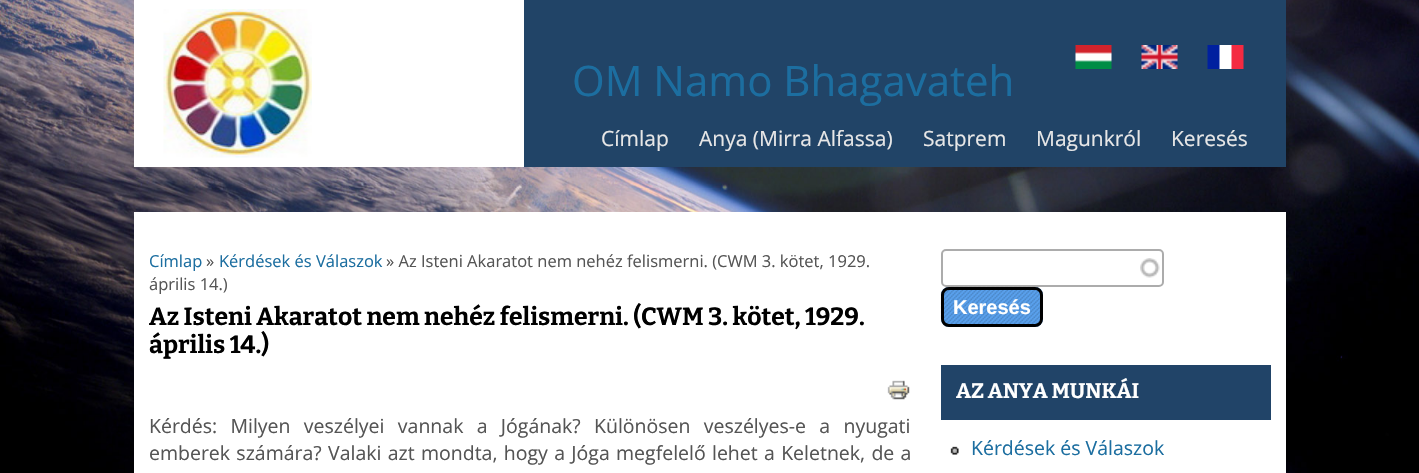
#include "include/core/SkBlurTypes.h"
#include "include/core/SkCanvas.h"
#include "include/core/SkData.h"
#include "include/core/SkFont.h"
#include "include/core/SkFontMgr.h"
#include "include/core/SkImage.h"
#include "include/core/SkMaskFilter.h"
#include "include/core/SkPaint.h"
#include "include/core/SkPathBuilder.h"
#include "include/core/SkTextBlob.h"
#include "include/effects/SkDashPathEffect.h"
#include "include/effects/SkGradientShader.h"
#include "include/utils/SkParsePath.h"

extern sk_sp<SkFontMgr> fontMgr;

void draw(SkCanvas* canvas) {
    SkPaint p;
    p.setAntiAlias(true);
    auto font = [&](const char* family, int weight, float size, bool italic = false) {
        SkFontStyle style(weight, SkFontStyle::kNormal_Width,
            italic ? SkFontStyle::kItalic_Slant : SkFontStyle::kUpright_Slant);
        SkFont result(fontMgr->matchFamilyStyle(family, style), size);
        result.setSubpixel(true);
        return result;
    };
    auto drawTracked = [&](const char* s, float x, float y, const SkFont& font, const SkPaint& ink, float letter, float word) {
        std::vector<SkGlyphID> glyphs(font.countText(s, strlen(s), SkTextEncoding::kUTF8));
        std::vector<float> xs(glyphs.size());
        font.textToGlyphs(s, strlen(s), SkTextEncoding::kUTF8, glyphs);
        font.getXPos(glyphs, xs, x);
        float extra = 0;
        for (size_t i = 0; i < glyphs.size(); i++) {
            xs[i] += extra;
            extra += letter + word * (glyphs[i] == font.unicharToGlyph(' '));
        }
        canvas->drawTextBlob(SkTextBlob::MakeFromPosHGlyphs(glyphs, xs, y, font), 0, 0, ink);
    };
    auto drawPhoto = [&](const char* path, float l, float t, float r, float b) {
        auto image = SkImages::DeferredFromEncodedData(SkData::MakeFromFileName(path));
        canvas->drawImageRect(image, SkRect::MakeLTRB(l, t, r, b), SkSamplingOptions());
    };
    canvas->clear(0xFFFFFFFF);
    drawPhoto("media/1.png", 0, 0, 1419, 473);
    p.setColor(0xFFFFFFFF);
    canvas->drawRect(SkRect::MakeLTRB(134, 0, 524, 167), p);
    drawPhoto("media/2.png", 163, 9, 312, 158);
    p.setColor(0xFF214467);
    canvas->drawRect(SkRect::MakeLTRB(524, 0, 1286, 167), p);
    drawPhoto("media/3.png", 1075, 45, 1112, 69);
    drawPhoto("media/4.png", 1141, 45, 1178, 69);
    drawPhoto("media/5.png", 1207, 45, 1244, 69);
    auto font1 = font("Open Sans", 400, 42);
    p.setColor(0xFF1C6EA0);
    canvas->drawString("OM Namo Bhagavateh", 572, 96, font1, p);
    auto font2 = font("Open Sans", 400, 21);
    p.setColor(0xFFE7E7E7);
    {
        const struct { const char* s; float x, y; } items[] = {
            {"Címlap", 601, 146},
            {"Anya (Mirra Alfassa)", 699, 146},
            {"Satprem", 923, 146},
            {"Magunkról", 1036, 146},
            {"Keresés", 1171, 146},
        };
        for (auto [s, x, y] : items) {
            canvas->drawString(s, x, y, font2, p);
        }
    }
    p.setColor(0xFFFFFFFF);
    canvas->drawRect(SkRect::MakeLTRB(134, 212, 1286, 473), p);
    auto font3 = font("Open Sans", 400, 16.5f);
    p.setColor(0xFF1C6EA0);
    canvas->drawString("Címlap", 149, 267, font3, p);
    p.setColor(0xFF555555);
    canvas->drawString("»", 206, 267, font3, p);
    p.setColor(0xFF1C6EA0);
    canvas->drawString("Kérdések és Válaszok", 219, 267, font3, p);
    p.setColor(0xFF555555);
    canvas->drawString("» Az Isteni Akaratot nem nehéz felismerni. (CWM 3. kötet, 1929.", 386, 267, font3, p);
    canvas->drawString("április 14.)", 149, 290, font3, p);
    auto font4 = font("Bitter", 700, 24.75f);
    p.setColor(0xFF000000);
    canvas->drawString("Az Isteni Akaratot nem nehéz felismerni. (CWM 3. kötet, 1929.", 149, 325, font4, p);
    canvas->drawString("április 14.)", 149, 353, font4, p);
    drawPhoto("media/6.png", 887, 380, 910, 400);
    auto font5 = font("Open Sans", 400, 19.5f);
    p.setColor(0xFF555555);
    drawTracked("Kérdés: Milyen veszélyei vannak a Jógának? Különösen veszélyes-e a nyugati", 149, 433, font5, p, 0, 8.25f);
    drawTracked("emberek számára? Valaki azt mondta, hogy a Jóga megfelelő lehet a Keletnek, de a", 149, 460, font5, p, 0, 1.25f);
    drawPhoto("media/7.png", 1140, 258, 1160, 278);
    p.setStyle(SkPaint::kStroke_Style);
    p.setStrokeWidth(2);
    p.setColor(0xFFACACAC);
    canvas->drawRoundRect(SkRect::MakeLTRB(942, 250, 1163, 286), 4, 4, p);
    p.setStyle(SkPaint::kFill_Style);
    p.setColor(0xFF5AA2EF);
    canvas->drawRoundRect(SkRect::MakeLTRB(941, 287, 1043, 327), 8, 8, p);
    drawPhoto("media/8.png", 940, 286, 1042, 327);
    p.setStyle(SkPaint::kStroke_Style);
    p.setStrokeWidth(3);
    p.setColor(0xFF000000);
    canvas->drawRoundRect(SkRect::MakeLTRB(942.5f, 288.5f, 1041.5f, 325.5f), 6.5f, 6.5f, p);
    auto font6 = font("Liberation Sans", 700, 20);
    p.setStyle(SkPaint::kFill_Style);
    p.setColor(0xFFFFFFFF);
    canvas->drawString("Keresés", 953, 314, font6, p);
    p.setColor(0xFF214468);
    canvas->drawRect(SkRect::MakeLTRB(941, 365, 1271, 420), p);
    auto font7 = font("Bitter", 700, 21);
    p.setColor(0xFFFFFFFF);
    canvas->drawString("AZ ANYA MUNKÁI", 956, 398, font7, p);
    drawPhoto("media/9.png", 950, 446, 959, 455);
    p.setColor(0xFF1C6EA0);
    canvas->drawString("Kérdések és Válaszok", 971, 455, font5, p);
}
